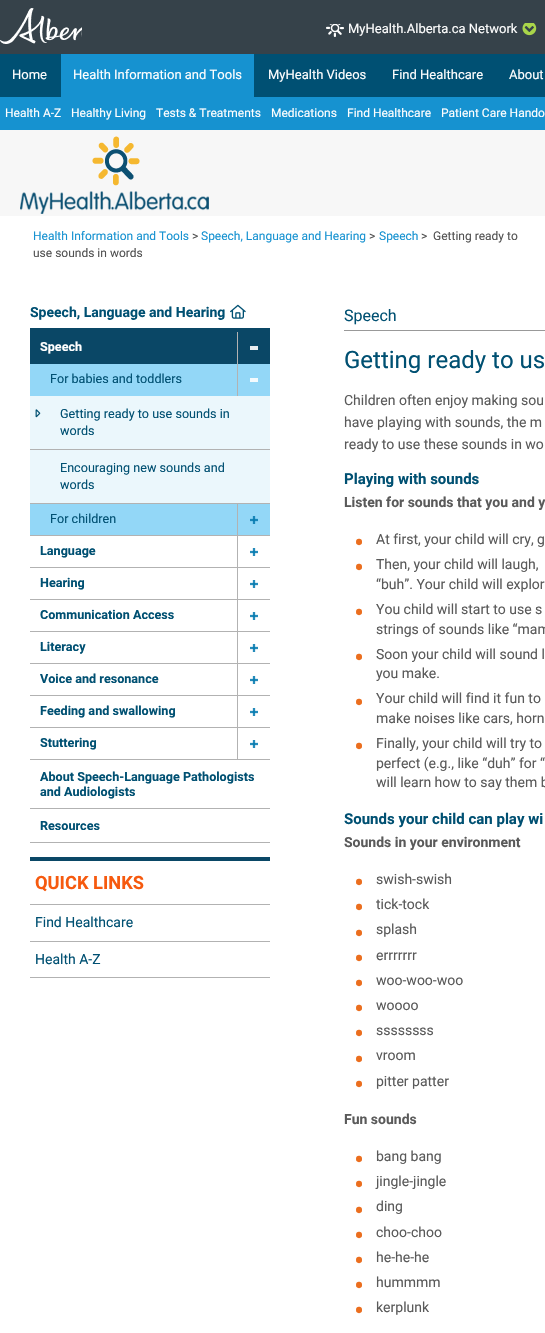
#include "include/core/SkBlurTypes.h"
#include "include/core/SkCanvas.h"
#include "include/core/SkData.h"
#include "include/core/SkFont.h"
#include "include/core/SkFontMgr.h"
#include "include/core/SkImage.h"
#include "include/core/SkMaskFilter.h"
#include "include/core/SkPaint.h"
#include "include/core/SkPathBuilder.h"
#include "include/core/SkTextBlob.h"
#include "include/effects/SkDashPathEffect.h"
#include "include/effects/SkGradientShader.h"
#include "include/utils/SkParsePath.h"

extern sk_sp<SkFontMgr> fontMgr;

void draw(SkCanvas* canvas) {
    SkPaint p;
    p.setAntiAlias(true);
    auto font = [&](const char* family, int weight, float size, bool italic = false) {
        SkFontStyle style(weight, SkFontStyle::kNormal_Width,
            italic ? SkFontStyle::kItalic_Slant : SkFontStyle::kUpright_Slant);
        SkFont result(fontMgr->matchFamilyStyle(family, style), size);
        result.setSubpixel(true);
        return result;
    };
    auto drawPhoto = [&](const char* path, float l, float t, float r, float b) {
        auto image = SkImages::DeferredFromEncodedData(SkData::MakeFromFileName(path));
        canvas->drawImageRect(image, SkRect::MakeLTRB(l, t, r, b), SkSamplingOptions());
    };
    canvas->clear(0xFFF7F7F7);
    p.setColor(0xFF005073);
    canvas->drawRect(SkRect::MakeLTRB(0, 54, 545, 97), p);
    p.setColor(0xFF36424A);
    canvas->drawRect(SkRect::MakeLTRB(0, 0, 545, 54), p);
    drawPhoto("media/1.png", 0, 8, 82, 44);
    drawPhoto("media/2.png", 326, 24, 344, 37);
    auto font1 = font("Roboto", 400, 13);
    p.setColor(0xFFFFFFFF);
    canvas->drawString("MyHealth.Alberta.ca Network", 348, 33, font1, p);
    drawPhoto("media/3.png", 522, 23, 537, 36);
    canvas->drawString("Home", 12, 79, font1, p);
    p.setColor(0xFF1692D0);
    canvas->drawRect(SkRect::MakeLTRB(61, 54, 254, 97), p);
    p.setColor(0xFFFFFFFF);
    {
        const struct { const char* s; float x, y; } items[] = {
            {"Health Information and Tools", 73, 79},
            {"MyHealth Videos", 268, 79},
            {"Find Healthcare", 392, 79},
            {"About", 509, 79},
        };
        for (auto [s, x, y] : items) {
            canvas->drawString(s, x, y, font1, p);
        }
    }
    p.setColor(0xFF1692D0);
    canvas->drawRect(SkRect::MakeLTRB(0, 97, 545, 130), p);
    auto font2 = font("Roboto", 400, 12);
    p.setColor(0xFFFFFFFF);
    {
        const struct { const char* s; float x, y; } items[] = {
            {"Health A-Z", 5, 117},
            {"Healthy Living", 71, 117},
            {"Tests & Treatments", 156, 117},
            {"Medications", 271, 117},
            {"Find Healthcare", 347, 117},
            {"Patient Care Hando", 441, 117},
        };
        for (auto [s, x, y] : items) {
            canvas->drawString(s, x, y, font2, p);
        }
    }
    drawPhoto("media/4.png", 20, 136, 209, 214);
    canvas->drawRect(SkRect::MakeLTRB(0, 216, 545, 1333), p);
    p.setColor(0xFF1692D1);
    canvas->drawString("Health Information and Tools", 33, 240, font2, p);
    p.setColor(0xFF525252);
    canvas->drawString(">", 192, 240, font2, p);
    p.setColor(0xFF1692D1);
    canvas->drawString("Speech, Language and Hearing", 201, 240, font2, p);
    p.setColor(0xFF525252);
    canvas->drawString(">", 369, 240, font2, p);
    p.setColor(0xFF1692D1);
    canvas->drawString("Speech", 379, 240, font2, p);
    p.setColor(0xFF525252);
    {
        const struct { const char* s; float x, y; } items[] = {
            {">", 421, 240},
            {"Getting ready to", 433, 240},
            {"use sounds in words", 33, 257},
        };
        for (auto [s, x, y] : items) {
            canvas->drawString(s, x, y, font2, p);
        }
    }
    auto font3 = font("Roboto", 700, 14);
    p.setColor(0xFF005072);
    canvas->drawString("Speech, Language and Hearing", 30, 317, font3, p);
    drawPhoto("media/5.png", 230, 304, 246, 319);
    p.setColor(0xFF0A4766);
    canvas->drawRect(SkRect::MakeLTRB(30, 328, 270, 364), p);
    p.setColor(0xFFB2B2B2);
    canvas->drawRect(SkRect::MakeLTRB(237, 332, 238, 364), p);
    auto font4 = font("Roboto", 700, 12.6f);
    p.setColor(0xFFFFFFFF);
    canvas->drawString("Speech", 40, 351, font4, p);
    {
        const struct { float l, t, r, b; SkColor color; } items[] = {
            {250, 346, 258, 350, 0xFFE7EDF0},
            {30, 364, 270, 396, 0xFF93D7F7},
            {237, 364, 238, 396, 0xFFB2B2B2},
        };
        for (auto [l, t, r, b, color] : items) {
            p.setColor(color);
            canvas->drawRect(SkRect::MakeLTRB(l, t, r, b), p);
        }
    }
    auto font5 = font("Roboto", 400, 12.6f);
    p.setColor(0xFF005072);
    canvas->drawString("For babies and toddlers", 50, 383, font5, p);
    p.setColor(0xFFF4FBFE);
    canvas->drawRect(SkRect::MakeLTRB(250, 378, 258, 382), p);
    p.setColor(0xFFEBF7FC);
    canvas->drawRect(SkRect::MakeLTRB(30, 396, 270, 449), p);
    drawPhoto("media/6.png", 35, 409, 41, 418);
    p.setColor(0xFF005072);
    canvas->drawString("Getting ready to use sounds in", 60, 418, font5, p);
    canvas->drawString("words", 60, 435, font5, p);
    p.setColor(0xFFEBF7FC);
    canvas->drawRect(SkRect::MakeLTRB(30, 450, 270, 503), p);
    p.setColor(0xFFB2B2B2);
    canvas->drawRect(SkRect::MakeLTRB(30, 449, 270, 450), p);
    p.setColor(0xFF005072);
    canvas->drawString("Encouraging new sounds and", 60, 472, font5, p);
    canvas->drawString("words", 60, 489, font5, p);
    {
        const struct { float l, t, r, b; SkColor color; } items[] = {
            {30, 504, 270, 535, 0xFF93D7F7},
            {30, 503, 270, 504, 0xFFB2B2B2},
            {237, 504, 238, 760, 0xFFB2B2B2},
        };
        for (auto [l, t, r, b, color] : items) {
            p.setColor(color);
            canvas->drawRect(SkRect::MakeLTRB(l, t, r, b), p);
        }
    }
    p.setColor(0xFF005072);
    canvas->drawString("For children", 50, 523, font5, p);
    drawPhoto("media/7.png", 250, 516, 258, 524);
    p.setColor(0xFFB2B2B2);
    canvas->drawRect(SkRect::MakeLTRB(30, 535, 270, 536), p);
    p.setColor(0xFF005072);
    canvas->drawString("Language", 40, 555, font4, p);
    drawPhoto("media/8.png", 250, 548, 258, 556);
    p.setColor(0xFFB2B2B2);
    canvas->drawRect(SkRect::MakeLTRB(30, 567, 270, 568), p);
    p.setColor(0xFF005072);
    canvas->drawString("Hearing", 40, 587, font4, p);
    p.setColor(0xFFD5E2E8);
    canvas->drawRect(SkRect::MakeLTRB(40, 582, 41, 583), p);
    drawPhoto("media/8.png", 250, 580, 258, 588);
    p.setColor(0xFFB2B2B2);
    canvas->drawRect(SkRect::MakeLTRB(30, 599, 270, 600), p);
    p.setColor(0xFF005072);
    canvas->drawString("Communication Access", 40, 619, font4, p);
    drawPhoto("media/8.png", 250, 612, 258, 620);
    p.setColor(0xFFB2B2B2);
    canvas->drawRect(SkRect::MakeLTRB(30, 631, 270, 632), p);
    p.setColor(0xFF005072);
    canvas->drawString("Literacy", 40, 651, font4, p);
    p.setColor(0xFFD5E2E8);
    canvas->drawRect(SkRect::MakeLTRB(40, 646, 41, 647), p);
    drawPhoto("media/8.png", 250, 644, 258, 652);
    p.setColor(0xFFB2B2B2);
    canvas->drawRect(SkRect::MakeLTRB(30, 663, 270, 664), p);
    p.setColor(0xFF005072);
    canvas->drawString("Voice and resonance", 40, 683, font4, p);
    drawPhoto("media/8.png", 250, 676, 258, 684);
    p.setColor(0xFFB2B2B2);
    canvas->drawRect(SkRect::MakeLTRB(30, 695, 270, 696), p);
    p.setColor(0xFF005072);
    canvas->drawString("Feeding and swallowing", 40, 715, font4, p);
    p.setColor(0xFFD5E2E8);
    canvas->drawRect(SkRect::MakeLTRB(40, 710, 41, 711), p);
    drawPhoto("media/8.png", 250, 708, 258, 716);
    p.setColor(0xFFB2B2B2);
    canvas->drawRect(SkRect::MakeLTRB(30, 727, 270, 728), p);
    p.setColor(0xFF005072);
    canvas->drawString("Stuttering", 40, 747, font4, p);
    drawPhoto("media/8.png", 250, 740, 258, 748);
    p.setColor(0xFFB2B2B2);
    canvas->drawRect(SkRect::MakeLTRB(30, 759, 270, 760), p);
    p.setColor(0xFF005072);
    canvas->drawString("About Speech-Language Pathologists", 40, 781, font4, p);
    canvas->drawString("and Audiologists", 40, 796, font4, p);
    p.setColor(0xFFB2B2B2);
    canvas->drawRect(SkRect::MakeLTRB(30, 808, 270, 809), p);
    canvas->drawRect(SkRect::MakeLTRB(30, 842, 270, 843), p);
    p.setColor(0xFF005072);
    canvas->drawString("Resources", 40, 830, font4, p);
    p.setColor(0xFF0A4766);
    canvas->drawRect(SkRect::MakeLTRB(30, 857, 270, 861), p);
    auto font6 = font("Roboto", 700, 18.25f);
    p.setColor(0xFFF65A0F);
    canvas->drawString("QUICK LINKS", 35, 889, font6, p);
    p.setColor(0xFFB2B2B2);
    canvas->drawRect(SkRect::MakeLTRB(30, 904, 270, 905), p);
    auto font7 = font("Roboto", 400, 14);
    p.setColor(0xFF005072);
    canvas->drawString("Find Healthcare", 35, 927, font7, p);
    p.setColor(0xFFB2B2B2);
    canvas->drawRect(SkRect::MakeLTRB(30, 941, 270, 942), p);
    canvas->drawRect(SkRect::MakeLTRB(30, 977, 270, 978), p);
    p.setColor(0xFF005072);
    canvas->drawString("Health A-Z", 35, 964, font7, p);
    p.setColor(0xFF999999);
    canvas->drawRect(SkRect::MakeLTRB(344, 330, 545, 331), p);
    auto font8 = font("Roboto", 400, 16);
    p.setColor(0xFF005072);
    canvas->drawString("Speech", 344, 321, font8, p);
    auto font9 = font("Roboto", 400, 24);
    canvas->drawString("Getting ready to us", 344, 368, font9, p);
    p.setColor(0xFF5A5A5A);
    {
        const struct { const char* s; float x, y; } items[] = {
            {"Children often enjoy making sou", 344, 405},
            {"have playing with sounds, the m", 344, 427},
            {"ready to use these sounds in wo", 344, 449},
        };
        for (auto [s, x, y] : items) {
            canvas->drawString(s, x, y, font7, p);
        }
    }
    auto font10 = font("Roboto", 700, 15);
    p.setColor(0xFF005072);
    canvas->drawString("Playing with sounds", 344, 484, font10, p);
    p.setColor(0xFF5A5A5A);
    canvas->drawString("Listen for sounds that you and y", 344, 507, font3, p);
    auto font11 = font("Roboto", 400, 30);
    p.setColor(0xFFEB6E1E);
    canvas->drawString("•", 354, 553, font11, p);
    p.setColor(0xFF5A5A5A);
    canvas->drawString("At first, your child will cry, g", 376, 544, font7, p);
    p.setColor(0xFFEB6E1E);
    canvas->drawString("•", 354, 578, font11, p);
    p.setColor(0xFF5A5A5A);
    canvas->drawString("Then, your child will laugh,", 376, 569, font7, p);
    canvas->drawString("“buh”. Your child will explor", 376, 589, font7, p);
    p.setColor(0xFFEB6E1E);
    canvas->drawString("•", 354, 623, font11, p);
    p.setColor(0xFF5A5A5A);
    canvas->drawString("You child will start to use s", 376, 614, font7, p);
    canvas->drawString("strings of sounds like “mam", 376, 634, font7, p);
    p.setColor(0xFFEB6E1E);
    canvas->drawString("•", 354, 668, font11, p);
    p.setColor(0xFF5A5A5A);
    canvas->drawString("Soon your child will sound l", 376, 659, font7, p);
    canvas->drawString("you make.", 376, 678, font7, p);
    p.setColor(0xFFEB6E1E);
    canvas->drawString("•", 354, 713, font11, p);
    p.setColor(0xFF5A5A5A);
    canvas->drawString("Your child will find it fun to", 376, 703, font7, p);
    canvas->drawString("make noises like cars, horn", 376, 723, font7, p);
    p.setColor(0xFFEB6E1E);
    canvas->drawString("•", 354, 757, font11, p);
    p.setColor(0xFF5A5A5A);
    {
        const struct { const char* s; float x, y; } items[] = {
            {"Finally, your child will try to", 376, 748},
            {"perfect (e.g., like “duh” for “", 376, 768},
            {"will learn how to say them b", 376, 787},
        };
        for (auto [s, x, y] : items) {
            canvas->drawString(s, x, y, font7, p);
        }
    }
    p.setColor(0xFF005072);
    canvas->drawString("Sounds your child can play wi", 344, 824, font10, p);
    p.setColor(0xFF5A5A5A);
    canvas->drawString("Sounds in your environment", 344, 847, font3, p);
    p.setColor(0xFFEB6E1E);
    canvas->drawString("•", 354, 893, font11, p);
    p.setColor(0xFF5A5A5A);
    canvas->drawString("swish-swish", 376, 884, font7, p);
    p.setColor(0xFFEB6E1E);
    canvas->drawString("•", 354, 918, font11, p);
    p.setColor(0xFF5A5A5A);
    canvas->drawString("tick-tock", 376, 909, font7, p);
    p.setColor(0xFFEB6E1E);
    canvas->drawString("•", 354, 944, font11, p);
    p.setColor(0xFF5A5A5A);
    canvas->drawString("splash", 376, 934, font7, p);
    p.setColor(0xFFEB6E1E);
    canvas->drawString("•", 354, 969, font11, p);
    p.setColor(0xFF5A5A5A);
    canvas->drawString("errrrrrr", 376, 960, font7, p);
    p.setColor(0xFFEB6E1E);
    canvas->drawString("•", 354, 994, font11, p);
    p.setColor(0xFF5A5A5A);
    canvas->drawString("woo-woo-woo", 376, 985, font7, p);
    p.setColor(0xFFEB6E1E);
    canvas->drawString("•", 354, 1019, font11, p);
    p.setColor(0xFF5A5A5A);
    canvas->drawString("woooo", 376, 1010, font7, p);
    p.setColor(0xFFEB6E1E);
    canvas->drawString("•", 354, 1044, font11, p);
    p.setColor(0xFF5A5A5A);
    canvas->drawString("ssssssss", 376, 1035, font7, p);
    p.setColor(0xFFEB6E1E);
    canvas->drawString("•", 354, 1070, font11, p);
    p.setColor(0xFF5A5A5A);
    canvas->drawString("vroom", 376, 1060, font7, p);
    p.setColor(0xFFEB6E1E);
    canvas->drawString("•", 354, 1095, font11, p);
    p.setColor(0xFF5A5A5A);
    canvas->drawString("pitter patter", 376, 1086, font7, p);
    canvas->drawString("Fun sounds", 344, 1124, font3, p);
    p.setColor(0xFFEB6E1E);
    canvas->drawString("•", 354, 1170, font11, p);
    p.setColor(0xFF5A5A5A);
    canvas->drawString("bang bang", 376, 1161, font7, p);
    p.setColor(0xFFEB6E1E);
    canvas->drawString("•", 354, 1195, font11, p);
    p.setColor(0xFF5A5A5A);
    canvas->drawString("jingle-jingle", 376, 1186, font7, p);
    p.setColor(0xFFEB6E1E);
    canvas->drawString("•", 354, 1221, font11, p);
    p.setColor(0xFF5A5A5A);
    canvas->drawString("ding", 376, 1211, font7, p);
    p.setColor(0xFFEB6E1E);
    canvas->drawString("•", 354, 1246, font11, p);
    p.setColor(0xFF5A5A5A);
    canvas->drawString("choo-choo", 376, 1237, font7, p);
    p.setColor(0xFFEB6E1E);
    canvas->drawString("•", 354, 1271, font11, p);
    p.setColor(0xFF5A5A5A);
    canvas->drawString("he-he-he", 376, 1262, font7, p);
    p.setColor(0xFFEB6E1E);
    canvas->drawString("•", 354, 1296, font11, p);
    p.setColor(0xFF5A5A5A);
    canvas->drawString("hummmm", 376, 1287, font7, p);
    p.setColor(0xFFEB6E1E);
    canvas->drawString("•", 354, 1321, font11, p);
    p.setColor(0xFF5A5A5A);
    canvas->drawString("kerplunk", 376, 1312, font7, p);
}
